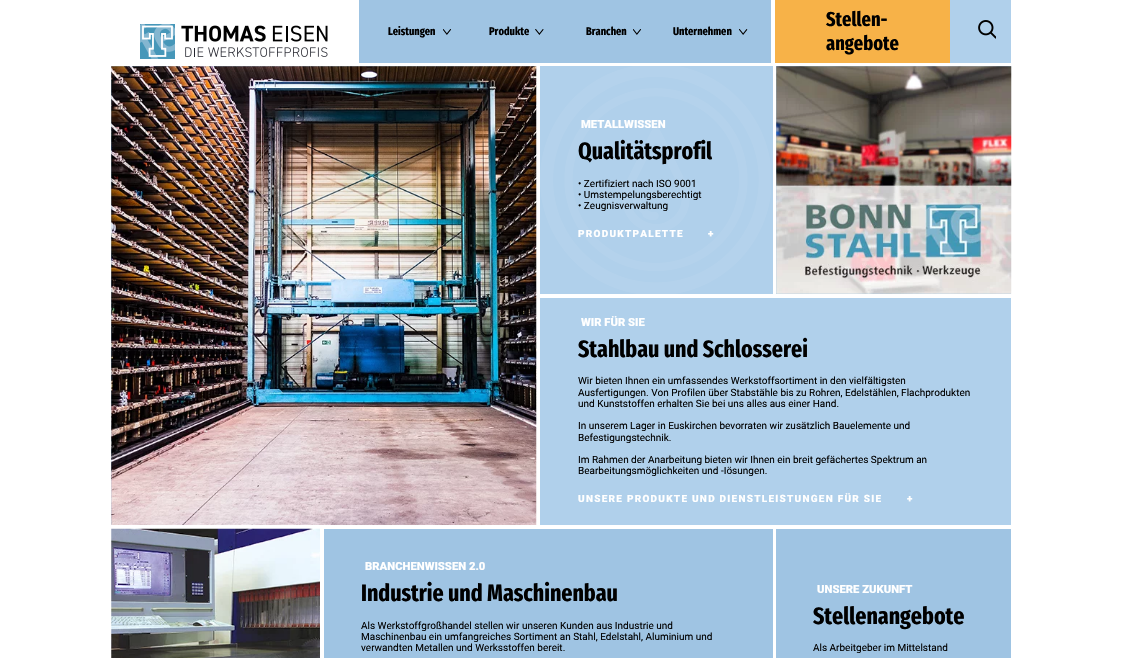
#include "include/core/SkBlurTypes.h"
#include "include/core/SkCanvas.h"
#include "include/core/SkData.h"
#include "include/core/SkFont.h"
#include "include/core/SkFontMgr.h"
#include "include/core/SkImage.h"
#include "include/core/SkMaskFilter.h"
#include "include/core/SkPaint.h"
#include "include/core/SkPathBuilder.h"
#include "include/core/SkTextBlob.h"
#include "include/effects/SkDashPathEffect.h"
#include "include/effects/SkGradientShader.h"
#include "include/utils/SkParsePath.h"

extern sk_sp<SkFontMgr> fontMgr;

void draw(SkCanvas* canvas) {
    SkPaint p;
    p.setAntiAlias(true);
    auto font = [&](const char* family, int weight, float size, bool italic = false) {
        SkFontStyle style(weight, SkFontStyle::kNormal_Width,
            italic ? SkFontStyle::kItalic_Slant : SkFontStyle::kUpright_Slant);
        SkFont result(fontMgr->matchFamilyStyle(family, style), size);
        result.setSubpixel(true);
        return result;
    };
    auto drawTracked = [&](const char* s, float x, float y, const SkFont& font, const SkPaint& ink, float letter, float word) {
        std::vector<SkGlyphID> glyphs(font.countText(s, strlen(s), SkTextEncoding::kUTF8));
        std::vector<float> xs(glyphs.size());
        font.textToGlyphs(s, strlen(s), SkTextEncoding::kUTF8, glyphs);
        font.getXPos(glyphs, xs, x);
        float extra = 0;
        for (size_t i = 0; i < glyphs.size(); i++) {
            xs[i] += extra;
            extra += letter + word * (glyphs[i] == font.unicharToGlyph(' '));
        }
        canvas->drawTextBlob(SkTextBlob::MakeFromPosHGlyphs(glyphs, xs, y, font), 0, 0, ink);
    };
    auto drawPhoto = [&](const char* path, float l, float t, float r, float b) {
        auto image = SkImages::DeferredFromEncodedData(SkData::MakeFromFileName(path));
        canvas->drawImageRect(image, SkRect::MakeLTRB(l, t, r, b), SkSamplingOptions());
    };
    canvas->clear(0xFFFFFFFF);
    drawPhoto("media/1.png", 140, 24, 328, 59);
    p.setColor(0xFF9FC4E3);
    canvas->drawRect(SkRect::MakeLTRB(359, 0, 771, 63), p);
    auto font1 = font("Fira Sans Extra Condensed", 700, 11.25f);
    p.setColor(0xFF000000);
    canvas->drawString("Leistungen", 388, 35, font1, p);
    drawPhoto("media/2.png", 443, 29, 451, 35);
    canvas->drawString("Produkte", 489, 35, font1, p);
    drawPhoto("media/3.png", 535, 29, 544, 35);
    canvas->drawString("Branchen", 586, 35, font1, p);
    drawPhoto("media/2.png", 633, 29, 641, 35);
    canvas->drawString("Unternehmen", 673, 35, font1, p);
    drawPhoto("media/4.png", 739, 29, 748, 35);
    p.setColor(0xFFB0D0EB);
    canvas->drawRect(SkRect::MakeLTRB(950, 0, 1011, 63), p);
    p.setColor(0xFFF7B248);
    canvas->drawRect(SkRect::MakeLTRB(775, 0, 950, 63), p);
    auto font2 = font("Fira Sans Extra Condensed", 700, 20);
    p.setColor(0xFF000000);
    canvas->drawString("Stellen-", 826, 26, font2, p);
    canvas->drawString("angebote", 826, 50, font2, p);
    drawPhoto("media/5.png", 978, 20, 996, 39);
    p.setColor(0xFF9FC4E3);
    canvas->drawRect(SkRect::MakeLTRB(111, 66, 536, 525), p);
    drawPhoto("media/6.png", 111, 66, 537, 525);
    p.setColor(0xFFB0D0EB);
    canvas->drawRect(SkRect::MakeLTRB(540, 66, 773, 294), p);
    drawPhoto("media/7.png", 540, 66, 771, 294);
    auto font3 = font("Roboto", 900, 11.25f);
    p.setColor(0xFFFFFFFF);
    canvas->drawString("METALLWISSEN", 581, 128, font3, p);
    auto font4 = font("Fira Sans Extra Condensed", 700, 23.75f);
    p.setColor(0xFF000000);
    canvas->drawString("Qualitätsprofil", 578, 159, font4, p);
    auto font5 = font("Roboto", 400, 10);
    {
        const struct { const char* s; float x, y; } items[] = {
            {"• Zertifiziert nach ISO 9001", 578, 187},
            {"• Umstempelungsberechtigt", 578, 198},
            {"• Zeugnisverwaltung", 578, 209},
        };
        for (auto [s, x, y] : items) {
            canvas->drawString(s, x, y, font5, p);
        }
    }
    auto font6 = font("Roboto", 900, 10);
    p.setColor(0xFFFFFFFF);
    drawTracked("PRODUKTPALETTE", 578, 237, font6, p, 1.25f, 0);
    drawTracked("+", 708, 237, font6, p, 1.25f, 0);
    p.setColor(0xFF9FC4E3);
    canvas->drawRect(SkRect::MakeLTRB(776, 66, 1011, 294), p);
    drawPhoto("media/8.png", 776, 66, 1012, 294);
    p.setColor(0xFFB0D0EB);
    canvas->drawRect(SkRect::MakeLTRB(540, 298, 1011, 525), p);
    p.setColor(0xFFFFFFFF);
    canvas->drawString("WIR FÜR SIE", 581, 326, font3, p);
    p.setColor(0xFF000000);
    canvas->drawString("Stahlbau und Schlosserei", 578, 357, font4, p);
    {
        const struct { const char* s; float x, y; } items[] = {
            {"Wir bieten Ihnen ein umfassendes Werkstoffsortiment in den vielfältigsten", 578, 384},
            {"Ausfertigungen. Von Profilen über Stabstähle bis zu Rohren, Edelstählen, Flachprodukten", 578, 396},
            {"und Kunststoffen erhalten Sie bei uns alles aus einer Hand.", 578, 407},
            {"In unserem Lager in Euskirchen bevorraten wir zusätzlich Bauelemente und", 578, 429},
            {"Befestigungstechnik.", 578, 441},
            {"Im Rahmen der Anarbeitung bieten wir Ihnen ein breit gefächertes Spektrum an", 578, 463},
            {"Bearbeitungsmöglichkeiten und -Iösungen.", 578, 474},
        };
        for (auto [s, x, y] : items) {
            canvas->drawString(s, x, y, font5, p);
        }
    }
    p.setColor(0xFFFFFFFF);
    drawTracked("UNSERE PRODUKTE UND DIENSTLEISTUNGEN FÜR SIE", 578, 502, font6, p, 1.25f, 0);
    drawTracked("+", 907, 502, font6, p, 1.25f, 0);
    drawPhoto("media/9.png", 111, 528, 320, 658);
    p.setColor(0xFF9FC4E3);
    canvas->drawRect(SkRect::MakeLTRB(324, 529, 773, 658), p);
    p.setColor(0xFFFFFFFF);
    canvas->drawString("BRANCHENWISSEN 2.0", 365, 570, font3, p);
    p.setColor(0xFF000000);
    canvas->drawString("Industrie und Maschinenbau", 361, 601, font4, p);
    {
        const struct { const char* s; float x, y; } items[] = {
            {"Als Werkstoffgroßhandel stellen wir unseren Kunden aus Industrie und", 361, 629},
            {"Maschinenbau ein umfangreiches Sortiment an Stahl, Edelstahl, Aluminium und", 361, 640},
            {"verwandten Metallen und Werksstoffen bereit.", 361, 651},
        };
        for (auto [s, x, y] : items) {
            canvas->drawString(s, x, y, font5, p);
        }
    }
    p.setColor(0xFF9FC4E3);
    canvas->drawRect(SkRect::MakeLTRB(776, 529, 1011, 658), p);
    p.setColor(0xFFFFFFFF);
    canvas->drawString("UNSERE ZUKUNFT", 817, 593, font3, p);
    p.setColor(0xFF000000);
    canvas->drawString("Stellenangebote", 813, 624, font4, p);
    canvas->drawString("Als Arbeitgeber im Mittelstand", 813, 651, font5, p);
}
